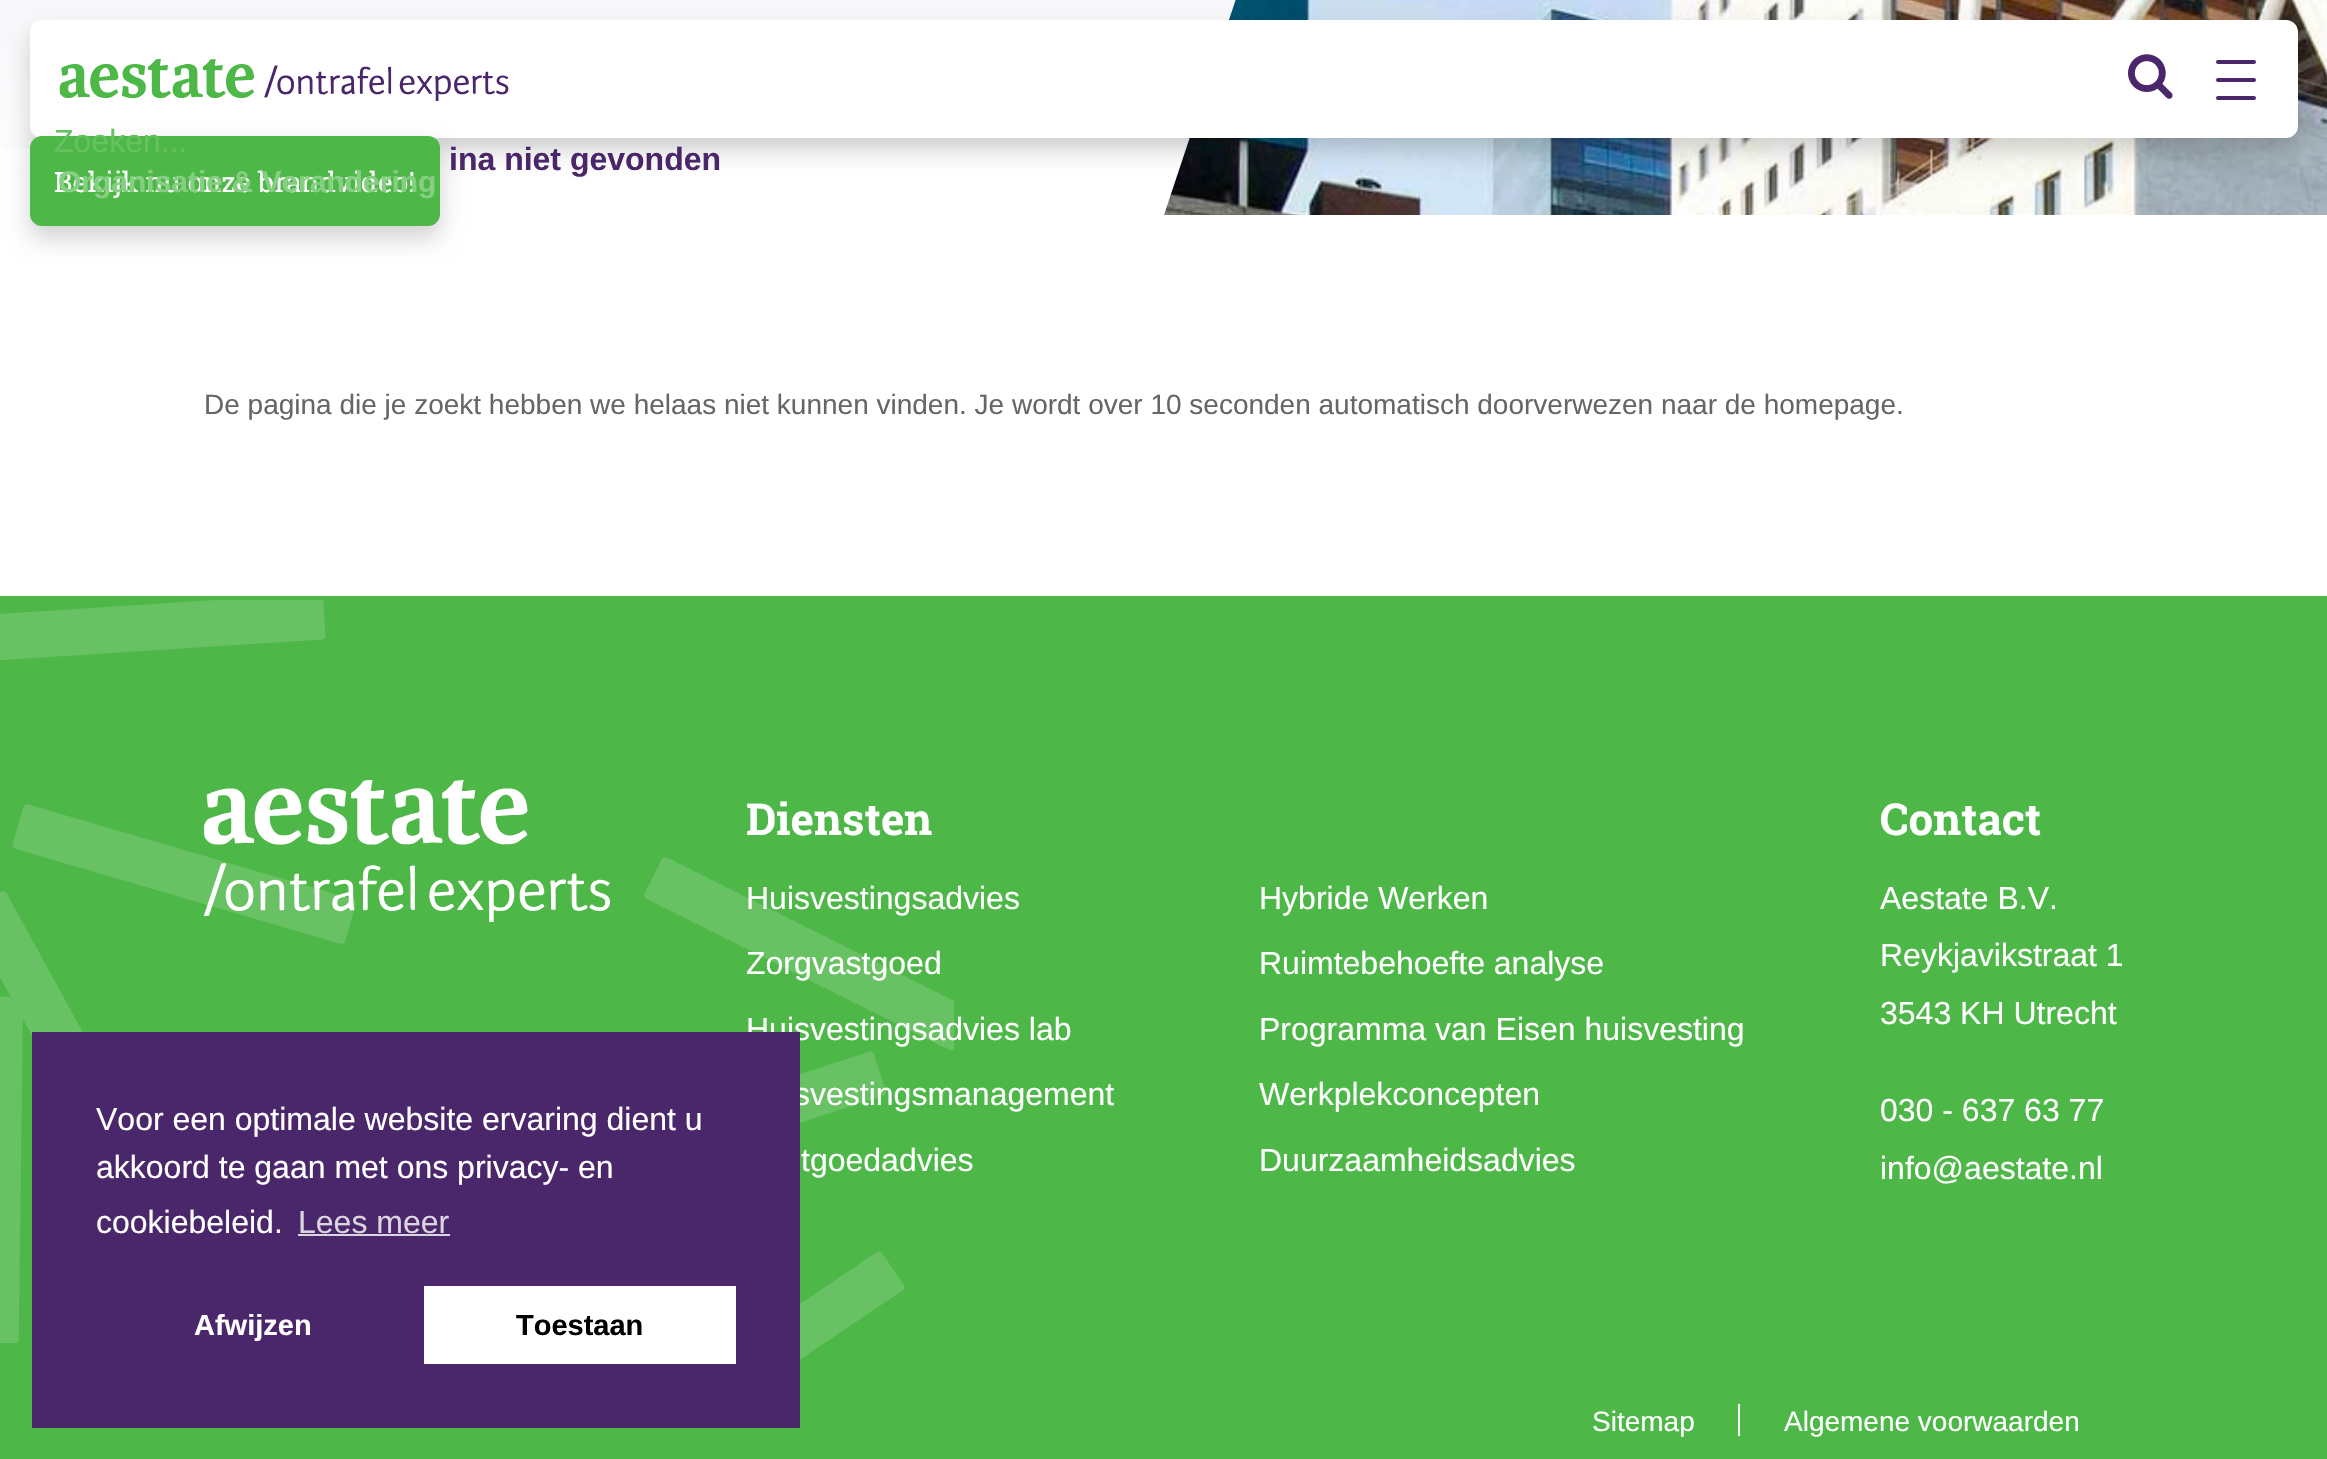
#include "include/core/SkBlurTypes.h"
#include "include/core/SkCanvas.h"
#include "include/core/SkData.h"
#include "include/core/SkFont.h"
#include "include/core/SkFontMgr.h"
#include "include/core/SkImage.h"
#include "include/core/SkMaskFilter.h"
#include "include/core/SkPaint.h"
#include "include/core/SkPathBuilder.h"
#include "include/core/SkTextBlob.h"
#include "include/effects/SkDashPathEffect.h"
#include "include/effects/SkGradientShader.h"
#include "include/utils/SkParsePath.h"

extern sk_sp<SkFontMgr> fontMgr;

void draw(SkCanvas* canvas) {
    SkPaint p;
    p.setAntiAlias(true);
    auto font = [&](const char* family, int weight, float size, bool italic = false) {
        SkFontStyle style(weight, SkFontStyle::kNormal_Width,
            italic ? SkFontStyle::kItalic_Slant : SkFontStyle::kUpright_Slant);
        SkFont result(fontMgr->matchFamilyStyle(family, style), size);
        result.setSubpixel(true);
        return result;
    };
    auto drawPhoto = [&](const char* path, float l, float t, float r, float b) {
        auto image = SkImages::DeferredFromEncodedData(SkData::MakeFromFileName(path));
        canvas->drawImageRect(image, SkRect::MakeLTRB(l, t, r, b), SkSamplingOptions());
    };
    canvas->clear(0xFFFFFFFF);
    {
        const SkColor colors[] = {0xFFF2F0F5, 0xFFF2F0F5, 0xFFFFFFFF};
        const float stops[] = {0, 0.42f, 1};
        const SkPoint ends[] = {{1164, -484}, {1164, 216}};
        p.setShader(SkGradientShader::MakeLinear(ends, colors, stops, 3, SkTileMode::kClamp));
        p.setAlpha(255);
    }
    canvas->drawRect(SkRect::MakeLTRB(0, 0, 2327, 148), p);
    drawPhoto("media/3.png", 1164, 0, 2327, 215);
    p.setShader(nullptr);
    p.setColor(0x2E000000);
    p.setMaskFilter(SkMaskFilter::MakeBlur(kNormal_SkBlurStyle, 12));
    canvas->drawRoundRect(SkRect::MakeLTRB(30, 32, 2298, 150), 12, 12, p);
    p.setMaskFilter(nullptr);
    p.setColor(0xFFFFFFFF);
    canvas->drawRoundRect(SkRect::MakeLTRB(30, 20, 2298, 138), 12, 12, p);
    drawPhoto("media/1.png", 59, 59, 509, 101);
    drawPhoto("media/2.png", 2128, 54, 2173, 99);
    p.setColor(0xFF4A276A);
    canvas->drawRoundRect(SkRect::MakeLTRB(2216, 60, 2256, 64), 2, 2, p);
    canvas->drawRoundRect(SkRect::MakeLTRB(2216, 78, 2256, 82), 2, 2, p);
    canvas->drawRoundRect(SkRect::MakeLTRB(2216, 96, 2256, 100), 2, 2, p);
    p.setColor(0x2E000000);
    p.setMaskFilter(SkMaskFilter::MakeBlur(kNormal_SkBlurStyle, 12));
    canvas->drawRoundRect(SkRect::MakeLTRB(30, 148, 440, 238), 12, 12, p);
    p.setMaskFilter(nullptr);
    p.setColor(0xFF4DB747);
    canvas->drawRoundRect(SkRect::MakeLTRB(30, 136, 440, 226), 12, 12, p);
    auto font1 = font("Liberation Sans", 400, 32);
    p.setColor(0xFF66C161);
    canvas->drawString("Zoeken...", 54, 152, font1, p);
    auto font2 = font("Roboto Slab", 400, 28);
    p.setColor(0xFFFFFFFF);
    canvas->drawString("Bekijk nu onze brandvideo!", 54, 192, font2, p);
    auto font3 = font("Liberation Sans", 700, 30);
    p.setColor(0xFF86CE82);
    canvas->drawString("Organisatie & Verandering", 58, 192, font3, p);
    auto font4 = font("Liberation Sans", 700, 32);
    p.setColor(0xFF4A276A);
    canvas->drawString("ina niet gevonden", 449, 170, font4, p);
    auto font5 = font("Liberation Sans", 400, 28);
    p.setColor(0xFF666666);
    canvas->drawString("De pagina die je zoekt hebben we helaas niet kunnen vinden. Je wordt over 10 seconden automatisch doorverwezen naar de homepage.", 204, 414, font5, p);
    p.setColor(0xFF4DB747);
    canvas->drawRect(SkRect::MakeLTRB(0, 596, 2327, 1459), p);
    drawPhoto("media/4.png", 0, 600, 954, 1360);
    p.setColor(0xFFFFFFFF);
    canvas->drawString("Huisvestingsadvies lab", 746, 1040, font1, p);
    canvas->drawString("svestingsmanagement", 794, 1105, font1, p);
    p.setColor(0xFF4A276A);
    canvas->drawRect(SkRect::MakeLTRB(32, 1032, 800, 1428), p);
    p.setColor(0xFFFFFFFF);
    {
        const struct { const char* s; float x, y; } items[] = {
            {"Voor een optimale website ervaring dient u", 96, 1130},
            {"akkoord te gaan met ons privacy- en", 96, 1178},
            {"cookiebeleid.", 96, 1233},
        };
        for (auto [s, x, y] : items) {
            canvas->drawString(s, x, y, font1, p);
        }
    }
    p.setColor(0xFFDBD4E1);
    canvas->drawString("Lees meer", 298, 1233, font1, p);
    canvas->drawRect(SkRect::MakeLTRB(298, 1234, 450, 1236), p);
    auto font6 = font("Liberation Sans", 700, 29);
    p.setColor(0xFFFFFFFF);
    canvas->drawString("Afwijzen", 194, 1335, font6, p);
    canvas->drawRect(SkRect::MakeLTRB(424, 1286, 736, 1364), p);
    p.setColor(0xFF000000);
    canvas->drawString("Toestaan", 516, 1335, font6, p);
    drawPhoto("media/5.png", 204, 780, 610, 922);
    auto font7 = font("Roboto Slab", 700, 44);
    p.setColor(0xFFFFFFFF);
    canvas->drawString("Diensten", 746, 835, font7, p);
    {
        const struct { const char* s; float x, y; } items[] = {
            {"Huisvestingsadvies", 746, 909},
            {"Hybride Werken", 1259, 909},
            {"Zorgvastgoed", 746, 974},
            {"Ruimtebehoefte analyse", 1259, 974},
            {"Programma van Eisen huisvesting", 1259, 1040},
            {"Werkplekconcepten", 1259, 1105},
            {"tgoedadvies", 801, 1171},
            {"Duurzaamheidsadvies", 1259, 1171},
        };
        for (auto [s, x, y] : items) {
            canvas->drawString(s, x, y, font1, p);
        }
    }
    canvas->drawString("Contact", 1880, 835, font7, p);
    {
        const struct { const char* s; float x, y; } items[] = {
            {"Aestate B.V.", 1880, 909},
            {"Reykjavikstraat 1", 1880, 966},
            {"3543 KH Utrecht", 1880, 1024},
            {"030 - 637 63 77", 1880, 1121},
            {"info@aestate.nl", 1880, 1179},
        };
        for (auto [s, x, y] : items) {
            canvas->drawString(s, x, y, font1, p);
        }
    }
    canvas->drawString("Sitemap", 1592, 1431, font5, p);
    canvas->drawRect(SkRect::MakeLTRB(1738, 1404, 1740, 1436), p);
    canvas->drawString("Algemene voorwaarden", 1784, 1431, font5, p);
}
